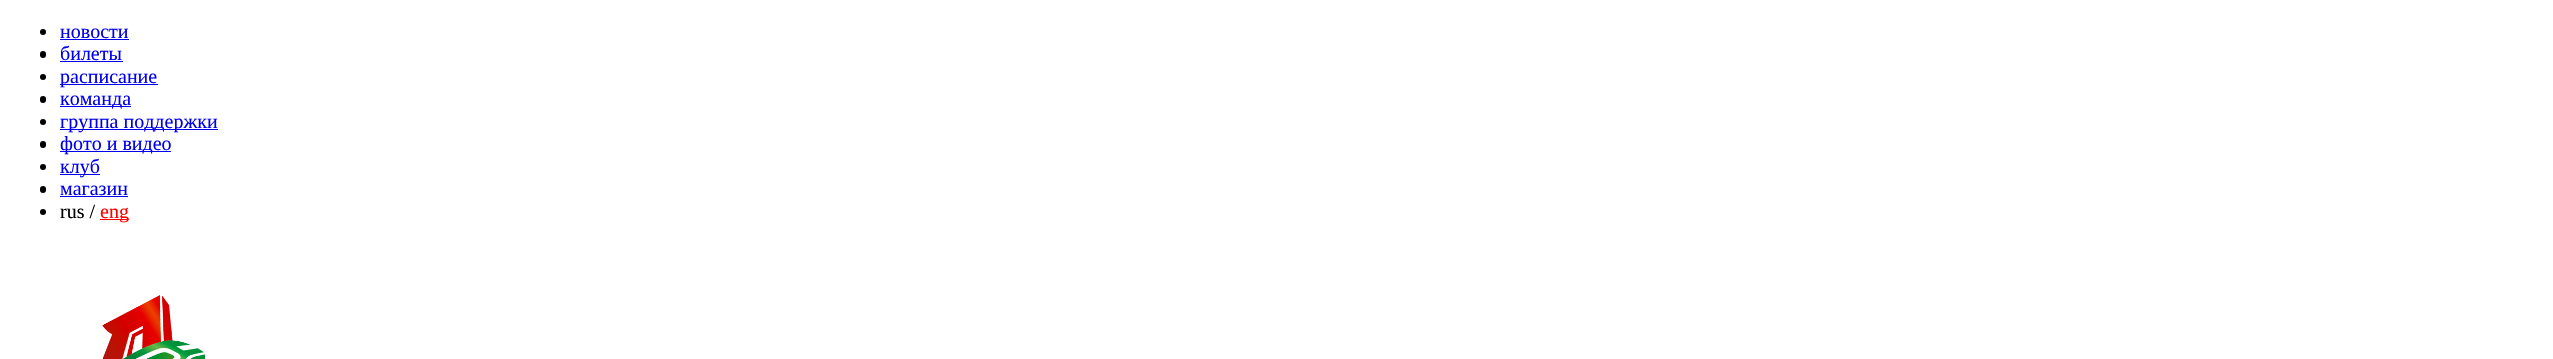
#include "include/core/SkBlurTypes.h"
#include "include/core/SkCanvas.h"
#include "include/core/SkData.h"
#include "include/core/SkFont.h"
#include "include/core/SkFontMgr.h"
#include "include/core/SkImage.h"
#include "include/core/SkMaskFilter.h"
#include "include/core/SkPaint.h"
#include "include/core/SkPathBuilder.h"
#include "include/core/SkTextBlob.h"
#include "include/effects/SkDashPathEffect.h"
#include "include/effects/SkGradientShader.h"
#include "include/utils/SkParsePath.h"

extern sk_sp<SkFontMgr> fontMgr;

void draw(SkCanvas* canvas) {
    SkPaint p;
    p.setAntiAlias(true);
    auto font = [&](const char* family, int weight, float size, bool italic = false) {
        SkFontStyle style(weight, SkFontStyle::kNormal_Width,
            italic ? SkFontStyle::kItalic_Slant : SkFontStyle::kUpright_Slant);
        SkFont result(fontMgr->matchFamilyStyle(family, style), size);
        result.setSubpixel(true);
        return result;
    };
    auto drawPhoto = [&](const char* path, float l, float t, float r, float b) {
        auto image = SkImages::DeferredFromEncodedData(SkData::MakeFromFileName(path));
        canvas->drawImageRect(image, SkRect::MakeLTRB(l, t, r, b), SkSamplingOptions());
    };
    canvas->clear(0xFFFFFFFF);
    p.setColor(0xFF000000);
    canvas->drawCircle(43, 32, 3, p);
    auto font1 = font("Liberation Serif", 400, 20);
    p.setColor(0xFF0000EE);
    canvas->drawString("новости", 60, 38, font1, p);
    canvas->drawRect(SkRect::MakeLTRB(60, 39, 129, 40), p);
    p.setColor(0xFF000000);
    canvas->drawRoundRect(SkRect::MakeLTRB(40, 51, 46, 58), 3, 3, p);
    p.setColor(0xFF0000EE);
    canvas->drawString("билеты", 60, 60, font1, p);
    canvas->drawRect(SkRect::MakeLTRB(60, 61, 123, 62), p);
    p.setColor(0xFF000000);
    canvas->drawCircle(43, 77, 3, p);
    p.setColor(0xFF0000EE);
    canvas->drawRect(SkRect::MakeLTRB(60, 84, 158, 85), p);
    canvas->drawString("расписание", 60, 83, font1, p);
    p.setColor(0xFF000000);
    canvas->drawRoundRect(SkRect::MakeLTRB(40, 96, 46, 103), 3, 3, p);
    p.setColor(0xFF0000EE);
    canvas->drawRect(SkRect::MakeLTRB(60, 106, 131, 107), p);
    canvas->drawString("команда", 60, 105, font1, p);
    p.setColor(0xFF000000);
    canvas->drawCircle(43, 122, 3, p);
    p.setColor(0xFF0000EE);
    canvas->drawRect(SkRect::MakeLTRB(60, 129, 218, 130), p);
    canvas->drawString("группа поддержки", 60, 128, font1, p);
    p.setColor(0xFF000000);
    canvas->drawRoundRect(SkRect::MakeLTRB(40, 141, 46, 148), 3, 3, p);
    p.setColor(0xFF0000EE);
    canvas->drawRect(SkRect::MakeLTRB(60, 151, 171, 152), p);
    canvas->drawString("фото и видео", 60, 150, font1, p);
    p.setColor(0xFF000000);
    canvas->drawCircle(43, 167, 3, p);
    p.setColor(0xFF0000EE);
    canvas->drawRect(SkRect::MakeLTRB(60, 174, 100, 175), p);
    canvas->drawString("клуб", 60, 173, font1, p);
    p.setColor(0xFF000000);
    canvas->drawRoundRect(SkRect::MakeLTRB(40, 186, 46, 193), 3, 3, p);
    p.setColor(0xFF0000EE);
    canvas->drawString("магазин", 60, 195, font1, p);
    canvas->drawRect(SkRect::MakeLTRB(60, 196, 128, 197), p);
    p.setColor(0xFF000000);
    canvas->drawCircle(43, 212, 3, p);
    canvas->drawString("rus /", 60, 218, font1, p);
    p.setColor(0xFFFF0000);
    canvas->drawRect(SkRect::MakeLTRB(100, 219, 129, 220), p);
    canvas->drawString("eng", 100, 218, font1, p);
    drawPhoto("media/1.png", 102, 295, 206, 359);
}
